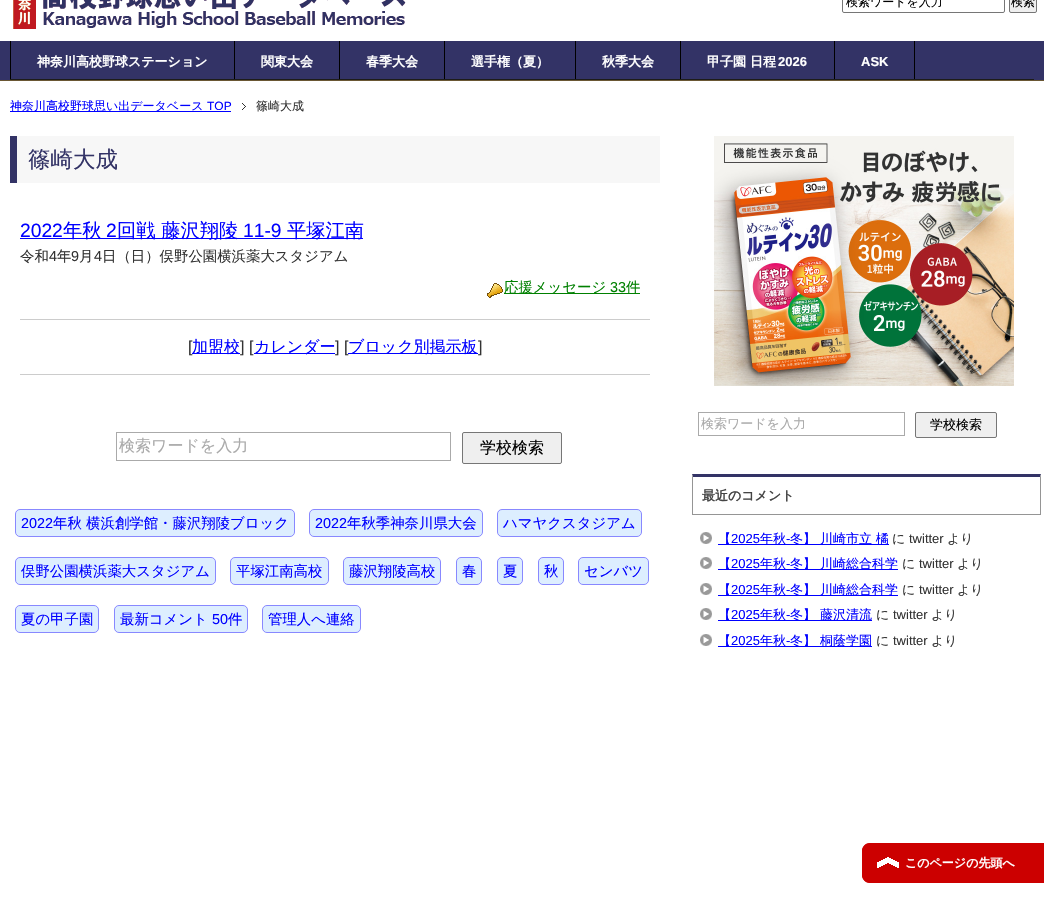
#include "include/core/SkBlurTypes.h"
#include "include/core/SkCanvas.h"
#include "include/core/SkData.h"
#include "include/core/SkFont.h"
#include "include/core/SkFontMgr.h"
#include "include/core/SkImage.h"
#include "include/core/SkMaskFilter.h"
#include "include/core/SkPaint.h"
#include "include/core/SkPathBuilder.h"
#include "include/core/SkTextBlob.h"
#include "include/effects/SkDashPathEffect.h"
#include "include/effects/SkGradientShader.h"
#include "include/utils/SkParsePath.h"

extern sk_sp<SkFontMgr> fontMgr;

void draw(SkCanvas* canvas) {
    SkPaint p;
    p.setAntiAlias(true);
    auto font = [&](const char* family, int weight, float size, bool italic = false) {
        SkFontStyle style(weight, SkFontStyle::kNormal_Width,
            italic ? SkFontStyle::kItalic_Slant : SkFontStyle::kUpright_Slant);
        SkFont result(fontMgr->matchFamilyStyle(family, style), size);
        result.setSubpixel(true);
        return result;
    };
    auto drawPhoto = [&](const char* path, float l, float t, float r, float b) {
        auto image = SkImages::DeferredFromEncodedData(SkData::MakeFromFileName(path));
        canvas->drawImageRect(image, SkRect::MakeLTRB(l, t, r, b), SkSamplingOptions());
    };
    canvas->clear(0xFFFFFFFF);
    drawPhoto("media/1.png", 13, 0, 406, 29);
    p.setStyle(SkPaint::kStroke_Style);
    p.setStrokeWidth(1);
    p.setColor(0xFF767676);
    canvas->drawRoundRect(SkRect::MakeLTRB(842.5f, -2.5f, 1004.5f, 12.5f), 1.5f, 1.5f, p);
    auto font1 = font("WenQuanYi Zen Hei", 500, 12);
    p.setStyle(SkPaint::kFill_Style);
    p.setColor(0xFF000000);
    canvas->drawString("検索ワードを入力", 846, 6, font1, p);
    p.setColor(0xFFEFEFEF);
    canvas->drawRoundRect(SkRect::MakeLTRB(1009.5f, -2.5f, 1036.5f, 12.5f), 1.5f, 1.5f, p);
    p.setStyle(SkPaint::kStroke_Style);
    p.setColor(0xFF767676);
    canvas->drawRoundRect(SkRect::MakeLTRB(1009.5f, -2.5f, 1036.5f, 12.5f), 1.5f, 1.5f, p);
    p.setStyle(SkPaint::kFill_Style);
    p.setColor(0xFF000000);
    canvas->drawString("検索", 1011, 6, font1, p);
    {
        const struct { float l, t, r, b; SkColor color; } items[] = {
            {0, 41, 1044, 80, 0xFF333366},
            {0, 80, 1044, 81, 0xFF6A5734},
            {10, 79, 1034, 80, 0xFF1D1C19},
            {234, 41, 235, 79, 0xFF000000},
            {10, 41, 11, 79, 0xFF000000},
        };
        for (auto [l, t, r, b, color] : items) {
            p.setColor(color);
            canvas->drawRect(SkRect::MakeLTRB(l, t, r, b), p);
        }
    }
    auto font2 = font("WenQuanYi Zen Hei", 700, 13);
    p.setColor(0xFFFFFFFF);
    canvas->drawString("神奈川高校野球ステーション", 37, 66, font2, p);
    p.setColor(0xFF000000);
    canvas->drawRect(SkRect::MakeLTRB(339, 41, 340, 79), p);
    p.setColor(0xFFFFFFFF);
    canvas->drawString("関東大会", 261, 66, font2, p);
    p.setColor(0xFF000000);
    canvas->drawRect(SkRect::MakeLTRB(444, 41, 445, 79), p);
    p.setColor(0xFFFFFFFF);
    canvas->drawString("春季大会", 366, 66, font2, p);
    p.setColor(0xFF000000);
    canvas->drawRect(SkRect::MakeLTRB(575, 41, 576, 79), p);
    p.setColor(0xFFFFFFFF);
    canvas->drawString("選手権（夏）", 471, 66, font2, p);
    p.setColor(0xFF000000);
    canvas->drawRect(SkRect::MakeLTRB(680, 41, 681, 79), p);
    p.setColor(0xFFFFFFFF);
    canvas->drawString("秋季大会", 602, 66, font2, p);
    p.setColor(0xFF000000);
    canvas->drawRect(SkRect::MakeLTRB(834, 41, 835, 79), p);
    p.setColor(0xFFFFFFFF);
    canvas->drawString("甲子園 日程", 707, 66, font2, p);
    auto font3 = font("Liberation Sans", 700, 13);
    canvas->drawString("2026", 778, 66, font3, p);
    p.setColor(0xFF000000);
    canvas->drawRect(SkRect::MakeLTRB(914, 41, 915, 79), p);
    p.setColor(0xFFFFFFFF);
    canvas->drawString("ASK", 861, 66, font3, p);
    p.setColor(0xFF0000FF);
    canvas->drawRect(SkRect::MakeLTRB(10, 111, 231, 112), p);
    canvas->drawString("神奈川高校野球思い出データベース", 10, 110, font1, p);
    auto font4 = font("Liberation Sans", 400, 12);
    canvas->drawString("TOP", 207, 110, font4, p);
    drawPhoto("media/2.png", 242, 103, 246, 110);
    p.setColor(0xFF333333);
    canvas->drawString("篠崎大成", 256, 110, font1, p);
    p.setColor(0xFFF7F7F7);
    canvas->drawRect(SkRect::MakeLTRB(17, 136, 660, 183), p);
    p.setColor(0xFF333366);
    canvas->drawRect(SkRect::MakeLTRB(10, 136, 17, 183), p);
    auto font5 = font("WenQuanYi Zen Hei", 500, 22.5f);
    canvas->drawString("篠崎大成", 28, 167, font5, p);
    auto font6 = font("Liberation Sans", 400, 19.25f);
    p.setColor(0xFF0000FF);
    canvas->drawString("2022", 20, 237, font6, p);
    canvas->drawRect(SkRect::MakeLTRB(20, 238, 363, 239), p);
    auto font7 = font("WenQuanYi Zen Hei", 500, 19.25f);
    canvas->drawString("年秋", 63, 237, font7, p);
    canvas->drawString("2", 106, 237, font6, p);
    canvas->drawString("回戦 藤沢翔陵", 117, 237, font7, p);
    canvas->drawString("11-9", 243, 237, font6, p);
    canvas->drawString("平塚江南", 287, 237, font7, p);
    auto font8 = font("WenQuanYi Zen Hei", 500, 14.4f);
    p.setColor(0xFF333333);
    canvas->drawString("令和", 20, 261, font8, p);
    auto font9 = font("Liberation Sans", 400, 14.4f);
    canvas->drawString("4", 49, 261, font9, p);
    canvas->drawString("年", 57, 261, font8, p);
    canvas->drawString("9", 71, 261, font9, p);
    canvas->drawString("月", 79, 261, font8, p);
    canvas->drawString("4", 94, 261, font9, p);
    canvas->drawString("日（日）俣野公園横浜薬大スタジアム", 102, 261, font8, p);
    drawPhoto("media/3.png", 487, 283, 503, 298);
    p.setColor(0xFF008000);
    canvas->drawRect(SkRect::MakeLTRB(504, 293, 640, 294), p);
    canvas->drawString("応援メッセージ", 504, 292, font8, p);
    canvas->drawString("33", 610, 292, font9, p);
    canvas->drawString("件", 626, 292, font8, p);
    p.setColor(0xFFCCCCCC);
    canvas->drawRect(SkRect::MakeLTRB(20, 319, 650, 320), p);
    auto font10 = font("Liberation Sans", 400, 16);
    p.setColor(0xFF333333);
    canvas->drawString("[", 188, 352, font10, p);
    p.setColor(0xFF0000FF);
    canvas->drawRect(SkRect::MakeLTRB(192, 353, 240, 354), p);
    auto font11 = font("WenQuanYi Zen Hei", 500, 16);
    canvas->drawString("加盟校", 192, 352, font11, p);
    p.setColor(0xFF333333);
    canvas->drawString("] [", 240, 352, font10, p);
    p.setColor(0xFF0000FF);
    canvas->drawRect(SkRect::MakeLTRB(254, 353, 335, 354), p);
    canvas->drawString("カレンダー", 254, 352, font11, p);
    p.setColor(0xFF333333);
    canvas->drawString("] [", 335, 352, font10, p);
    p.setColor(0xFF0000FF);
    canvas->drawRect(SkRect::MakeLTRB(348, 353, 478, 354), p);
    canvas->drawString("ブロック別掲示板", 348, 352, font11, p);
    p.setColor(0xFF333333);
    canvas->drawString("]", 478, 352, font10, p);
    p.setColor(0xFFCCCCCC);
    canvas->drawRect(SkRect::MakeLTRB(20, 374, 650, 375), p);
    p.setStyle(SkPaint::kStroke_Style);
    p.setColor(0xFFAAAAAA);
    canvas->drawRect(SkRect::MakeLTRB(116.5f, 432.5f, 450.5f, 460.5f), p);
    p.setStyle(SkPaint::kFill_Style);
    canvas->drawString("検索ワードを入力", 119, 451, font11, p);
    p.setColor(0xFFEFEFEF);
    canvas->drawRoundRect(SkRect::MakeLTRB(462.5f, 432.5f, 561.5f, 463.5f), 1.5f, 1.5f, p);
    p.setStyle(SkPaint::kStroke_Style);
    p.setColor(0xFF767676);
    canvas->drawRoundRect(SkRect::MakeLTRB(462.5f, 432.5f, 561.5f, 463.5f), 1.5f, 1.5f, p);
    p.setStyle(SkPaint::kFill_Style);
    p.setColor(0xFF000000);
    canvas->drawString("学校検索", 480, 453, font11, p);
    p.setColor(0xFFDDEEFF);
    canvas->drawRoundRect(SkRect::MakeLTRB(15.5f, 509.5f, 294.5f, 536.5f), 4.5f, 4.5f, p);
    p.setStyle(SkPaint::kStroke_Style);
    p.setColor(0xFF8888FF);
    canvas->drawRoundRect(SkRect::MakeLTRB(15.5f, 509.5f, 294.5f, 536.5f), 4.5f, 4.5f, p);
    p.setStyle(SkPaint::kFill_Style);
    p.setColor(0xFF0000FF);
    canvas->drawString("2022", 21, 528, font9, p);
    canvas->drawString("年秋 横浜創学館・藤沢翔陵ブロック", 53, 528, font8, p);
    p.setColor(0xFFDDEEFF);
    canvas->drawRoundRect(SkRect::MakeLTRB(309.5f, 509.5f, 482.5f, 536.5f), 4.5f, 4.5f, p);
    p.setStyle(SkPaint::kStroke_Style);
    p.setColor(0xFF8888FF);
    canvas->drawRoundRect(SkRect::MakeLTRB(309.5f, 509.5f, 482.5f, 536.5f), 4.5f, 4.5f, p);
    p.setStyle(SkPaint::kFill_Style);
    p.setColor(0xFF0000FF);
    canvas->drawString("2022", 315, 528, font9, p);
    canvas->drawString("年秋季神奈川県大会", 347, 528, font8, p);
    p.setColor(0xFFDDEEFF);
    canvas->drawRoundRect(SkRect::MakeLTRB(497.5f, 509.5f, 641.5f, 536.5f), 4.5f, 4.5f, p);
    p.setStyle(SkPaint::kStroke_Style);
    p.setColor(0xFF8888FF);
    canvas->drawRoundRect(SkRect::MakeLTRB(497.5f, 509.5f, 641.5f, 536.5f), 4.5f, 4.5f, p);
    p.setStyle(SkPaint::kFill_Style);
    p.setColor(0xFF0000FF);
    canvas->drawString("ハマヤクスタジアム", 503, 528, font8, p);
    p.setColor(0xFFDDEEFF);
    canvas->drawRoundRect(SkRect::MakeLTRB(15.5f, 557.5f, 215.5f, 584.5f), 4.5f, 4.5f, p);
    p.setStyle(SkPaint::kStroke_Style);
    p.setColor(0xFF8888FF);
    canvas->drawRoundRect(SkRect::MakeLTRB(15.5f, 557.5f, 215.5f, 584.5f), 4.5f, 4.5f, p);
    p.setStyle(SkPaint::kFill_Style);
    p.setColor(0xFF0000FF);
    canvas->drawString("俣野公園横浜薬大スタジアム", 21, 576, font8, p);
    p.setColor(0xFFDDEEFF);
    canvas->drawRoundRect(SkRect::MakeLTRB(230.5f, 557.5f, 328.5f, 584.5f), 4.5f, 4.5f, p);
    p.setStyle(SkPaint::kStroke_Style);
    p.setColor(0xFF8888FF);
    canvas->drawRoundRect(SkRect::MakeLTRB(230.5f, 557.5f, 328.5f, 584.5f), 4.5f, 4.5f, p);
    p.setStyle(SkPaint::kFill_Style);
    p.setColor(0xFF0000FF);
    canvas->drawString("平塚江南高校", 236, 576, font8, p);
    p.setColor(0xFFDDEEFF);
    canvas->drawRoundRect(SkRect::MakeLTRB(343.5f, 557.5f, 440.5f, 584.5f), 4.5f, 4.5f, p);
    p.setStyle(SkPaint::kStroke_Style);
    p.setColor(0xFF8888FF);
    canvas->drawRoundRect(SkRect::MakeLTRB(343.5f, 557.5f, 440.5f, 584.5f), 4.5f, 4.5f, p);
    p.setStyle(SkPaint::kFill_Style);
    p.setColor(0xFF0000FF);
    canvas->drawString("藤沢翔陵高校", 349, 576, font8, p);
    p.setColor(0xFFDDEEFF);
    canvas->drawRoundRect(SkRect::MakeLTRB(456.5f, 557.5f, 481.5f, 584.5f), 4.5f, 4.5f, p);
    p.setStyle(SkPaint::kStroke_Style);
    p.setColor(0xFF8888FF);
    canvas->drawRoundRect(SkRect::MakeLTRB(456.5f, 557.5f, 481.5f, 584.5f), 4.5f, 4.5f, p);
    p.setStyle(SkPaint::kFill_Style);
    p.setColor(0xFF0000FF);
    canvas->drawString("春", 462, 576, font8, p);
    p.setColor(0xFFDDEEFF);
    canvas->drawRoundRect(SkRect::MakeLTRB(497.5f, 557.5f, 522.5f, 584.5f), 4.5f, 4.5f, p);
    p.setStyle(SkPaint::kStroke_Style);
    p.setColor(0xFF8888FF);
    canvas->drawRoundRect(SkRect::MakeLTRB(497.5f, 557.5f, 522.5f, 584.5f), 4.5f, 4.5f, p);
    p.setStyle(SkPaint::kFill_Style);
    p.setColor(0xFF0000FF);
    canvas->drawString("夏", 503, 576, font8, p);
    p.setColor(0xFFDDEEFF);
    canvas->drawRoundRect(SkRect::MakeLTRB(538.5f, 557.5f, 563.5f, 584.5f), 4.5f, 4.5f, p);
    p.setStyle(SkPaint::kStroke_Style);
    p.setColor(0xFF8888FF);
    canvas->drawRoundRect(SkRect::MakeLTRB(538.5f, 557.5f, 563.5f, 584.5f), 4.5f, 4.5f, p);
    p.setStyle(SkPaint::kFill_Style);
    p.setColor(0xFF0000FF);
    canvas->drawString("秋", 544, 576, font8, p);
    p.setColor(0xFFDDEEFF);
    canvas->drawRoundRect(SkRect::MakeLTRB(578.5f, 557.5f, 648.5f, 584.5f), 4.5f, 4.5f, p);
    p.setStyle(SkPaint::kStroke_Style);
    p.setColor(0xFF8888FF);
    canvas->drawRoundRect(SkRect::MakeLTRB(578.5f, 557.5f, 648.5f, 584.5f), 4.5f, 4.5f, p);
    p.setStyle(SkPaint::kFill_Style);
    p.setColor(0xFF0000FF);
    canvas->drawString("センバツ", 584, 576, font8, p);
    p.setColor(0xFFDDEEFF);
    canvas->drawRoundRect(SkRect::MakeLTRB(15.5f, 605.5f, 98.5f, 632.5f), 4.5f, 4.5f, p);
    p.setStyle(SkPaint::kStroke_Style);
    p.setColor(0xFF8888FF);
    canvas->drawRoundRect(SkRect::MakeLTRB(15.5f, 605.5f, 98.5f, 632.5f), 4.5f, 4.5f, p);
    p.setStyle(SkPaint::kFill_Style);
    p.setColor(0xFF0000FF);
    canvas->drawString("夏の甲子園", 21, 624, font8, p);
    p.setColor(0xFFDDEEFF);
    canvas->drawRoundRect(SkRect::MakeLTRB(114.5f, 605.5f, 247.5f, 632.5f), 4.5f, 4.5f, p);
    p.setStyle(SkPaint::kStroke_Style);
    p.setColor(0xFF8888FF);
    canvas->drawRoundRect(SkRect::MakeLTRB(114.5f, 605.5f, 247.5f, 632.5f), 4.5f, 4.5f, p);
    p.setStyle(SkPaint::kFill_Style);
    p.setColor(0xFF0000FF);
    canvas->drawString("最新コメント", 120, 624, font8, p);
    canvas->drawString("50", 212, 624, font9, p);
    canvas->drawString("件", 228, 624, font8, p);
    p.setColor(0xFFDDEEFF);
    canvas->drawRoundRect(SkRect::MakeLTRB(262.5f, 605.5f, 360.5f, 632.5f), 4.5f, 4.5f, p);
    p.setStyle(SkPaint::kStroke_Style);
    p.setColor(0xFF8888FF);
    canvas->drawRoundRect(SkRect::MakeLTRB(262.5f, 605.5f, 360.5f, 632.5f), 4.5f, 4.5f, p);
    p.setStyle(SkPaint::kFill_Style);
    p.setColor(0xFF0000FF);
    canvas->drawString("管理人へ連絡", 268, 624, font8, p);
    drawPhoto("media/4.png", 714, 136, 1014, 386);
    p.setStyle(SkPaint::kStroke_Style);
    p.setColor(0xFFAAAAAA);
    canvas->drawRect(SkRect::MakeLTRB(698.5f, 412.5f, 904.5f, 435.5f), p);
    auto font12 = font("WenQuanYi Zen Hei", 500, 13);
    p.setStyle(SkPaint::kFill_Style);
    canvas->drawString("検索ワードを入力", 701, 428, font12, p);
    p.setColor(0xFFEFEFEF);
    canvas->drawRoundRect(SkRect::MakeLTRB(915.5f, 412.5f, 996.5f, 437.5f), 1.5f, 1.5f, p);
    p.setStyle(SkPaint::kStroke_Style);
    p.setColor(0xFF767676);
    canvas->drawRoundRect(SkRect::MakeLTRB(915.5f, 412.5f, 996.5f, 437.5f), 1.5f, 1.5f, p);
    p.setStyle(SkPaint::kFill_Style);
    p.setColor(0xFF000000);
    canvas->drawString("学校検索", 930, 429, font12, p);
    p.setColor(0xFF333366);
    canvas->drawPath(SkPathBuilder().moveTo(692, 474).lineTo(1041, 474).lineTo(1040, 477).lineTo(693, 477).close().detach(), p);
    p.setColor(0xFF959595);
    canvas->drawPath(SkPathBuilder().moveTo(1041, 474).lineTo(1041, 515).lineTo(1040, 514).lineTo(1040, 477).close().detach(), p);
    canvas->drawRect(SkRect::MakeLTRB(692, 514, 1041, 515), p);
    canvas->drawPath(SkPathBuilder().moveTo(692, 515).lineTo(692, 474).lineTo(693, 477).lineTo(693, 514).close().detach(), p);
    p.setColor(0xFF454545);
    canvas->drawString("最近のコメント", 702, 500, font2, p);
    drawPhoto("media/5.png", 700, 532, 712, 544);
    p.setColor(0xFF0000FF);
    canvas->drawRect(SkRect::MakeLTRB(718, 544, 889, 545), p);
    canvas->drawString("【", 718, 543, font12, p);
    auto font13 = font("Liberation Sans", 400, 13);
    canvas->drawString("2025", 731, 543, font13, p);
    canvas->drawString("年秋", 760, 543, font12, p);
    canvas->drawString("-", 786, 543, font13, p);
    canvas->drawString("冬】 川崎市立 橘", 790, 543, font12, p);
    p.setColor(0xFF333333);
    canvas->drawString("に", 892, 543, font12, p);
    canvas->drawString("twitter", 909, 543, font13, p);
    canvas->drawString("より", 947, 543, font12, p);
    drawPhoto("media/5.png", 700, 557, 712, 569);
    p.setColor(0xFF0000FF);
    canvas->drawRect(SkRect::MakeLTRB(718, 569, 898, 570), p);
    canvas->drawString("【", 718, 568, font12, p);
    canvas->drawString("2025", 731, 568, font13, p);
    canvas->drawString("年秋", 760, 568, font12, p);
    canvas->drawString("-", 786, 568, font13, p);
    canvas->drawString("冬】 川崎総合科学", 790, 568, font12, p);
    p.setColor(0xFF333333);
    canvas->drawString("に", 902, 568, font12, p);
    canvas->drawString("twitter", 919, 568, font13, p);
    canvas->drawString("より", 957, 568, font12, p);
    drawPhoto("media/5.png", 700, 583, 712, 595);
    p.setColor(0xFF0000FF);
    canvas->drawRect(SkRect::MakeLTRB(718, 595, 898, 596), p);
    canvas->drawString("【", 718, 594, font12, p);
    canvas->drawString("2025", 731, 594, font13, p);
    canvas->drawString("年秋", 760, 594, font12, p);
    canvas->drawString("-", 786, 594, font13, p);
    canvas->drawString("冬】 川崎総合科学", 790, 594, font12, p);
    p.setColor(0xFF333333);
    canvas->drawString("に", 902, 594, font12, p);
    canvas->drawString("twitter", 919, 594, font13, p);
    canvas->drawString("より", 957, 594, font12, p);
    drawPhoto("media/5.png", 700, 608, 712, 620);
    p.setColor(0xFF0000FF);
    canvas->drawRect(SkRect::MakeLTRB(718, 620, 872, 621), p);
    canvas->drawString("【", 718, 619, font12, p);
    canvas->drawString("2025", 731, 619, font13, p);
    canvas->drawString("年秋", 760, 619, font12, p);
    canvas->drawString("-", 786, 619, font13, p);
    canvas->drawString("冬】 藤沢清流", 790, 619, font12, p);
    p.setColor(0xFF333333);
    canvas->drawString("に", 876, 619, font12, p);
    canvas->drawString("twitter", 893, 619, font13, p);
    canvas->drawString("より", 931, 619, font12, p);
    drawPhoto("media/5.png", 700, 634, 712, 646);
    p.setColor(0xFF0000FF);
    canvas->drawRect(SkRect::MakeLTRB(718, 646, 872, 647), p);
    canvas->drawString("【", 718, 645, font12, p);
    canvas->drawString("2025", 731, 645, font13, p);
    canvas->drawString("年秋", 760, 645, font12, p);
    canvas->drawString("-", 786, 645, font13, p);
    canvas->drawString("冬】 桐蔭学園", 790, 645, font12, p);
    p.setColor(0xFF333333);
    canvas->drawString("に", 876, 645, font12, p);
    canvas->drawString("twitter", 893, 645, font13, p);
    canvas->drawString("より", 931, 645, font12, p);
    p.setColor(0xFFCC0000);
    canvas->drawPath(SkPathBuilder().moveTo(870, 843).lineTo(1044, 843).lineTo(1044, 883).lineTo(870, 883).cubicTo(865.5f, 883, 862, 879.5f, 862, 875).lineTo(862, 851).cubicTo(862, 846.5f, 865.5f, 843, 870, 843).close().detach(), p);
    drawPhoto("media/6.png", 877, 857, 899, 868);
    canvas->drawPath(SkPathBuilder(SkPathFillType::kEvenOdd).moveTo(870, 843).lineTo(1044, 843).lineTo(1044, 883).lineTo(870, 883).cubicTo(866, 883, 862, 879, 862, 875).lineTo(862, 851).cubicTo(862, 847, 866, 843, 870, 843).close().moveTo(870, 844).lineTo(1044, 844).lineTo(1044, 882).lineTo(870, 882).cubicTo(866, 882, 863, 879, 863, 875).lineTo(863, 851).cubicTo(863, 847, 866, 844, 870, 844).close().detach(), p);
    auto font14 = font("WenQuanYi Zen Hei", 700, 12);
    p.setColor(0xFFFFFFFF);
    canvas->drawString("このページの先頭へ", 905, 867, font14, p);
}
